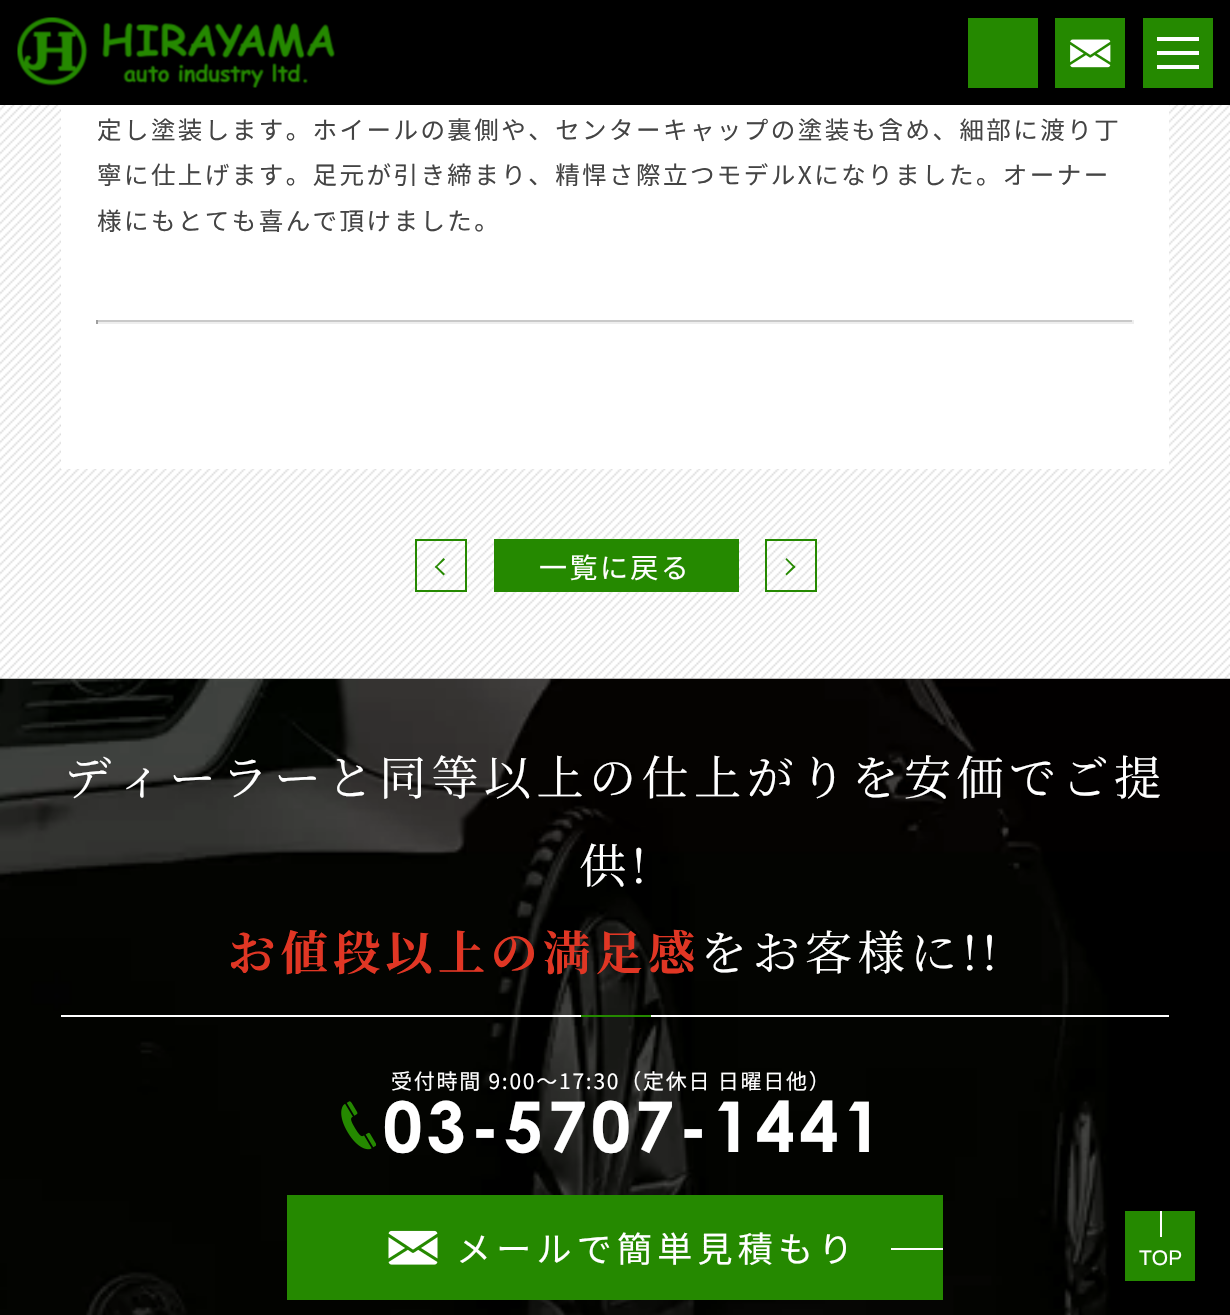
#include "include/core/SkBlurTypes.h"
#include "include/core/SkCanvas.h"
#include "include/core/SkData.h"
#include "include/core/SkFont.h"
#include "include/core/SkFontMgr.h"
#include "include/core/SkImage.h"
#include "include/core/SkMaskFilter.h"
#include "include/core/SkPaint.h"
#include "include/core/SkPathBuilder.h"
#include "include/core/SkTextBlob.h"
#include "include/effects/SkDashPathEffect.h"
#include "include/effects/SkGradientShader.h"
#include "include/utils/SkParsePath.h"

extern sk_sp<SkFontMgr> fontMgr;

void draw(SkCanvas* canvas) {
    SkPaint p;
    p.setAntiAlias(true);
    auto font = [&](const char* family, int weight, float size, bool italic = false) {
        SkFontStyle style(weight, SkFontStyle::kNormal_Width,
            italic ? SkFontStyle::kItalic_Slant : SkFontStyle::kUpright_Slant);
        SkFont result(fontMgr->matchFamilyStyle(family, style), size);
        result.setSubpixel(true);
        return result;
    };
    auto drawTracked = [&](const char* s, float x, float y, const SkFont& font, const SkPaint& ink, float letter, float word) {
        std::vector<SkGlyphID> glyphs(font.countText(s, strlen(s), SkTextEncoding::kUTF8));
        std::vector<float> xs(glyphs.size());
        font.textToGlyphs(s, strlen(s), SkTextEncoding::kUTF8, glyphs);
        font.getXPos(glyphs, xs, x);
        float extra = 0;
        for (size_t i = 0; i < glyphs.size(); i++) {
            xs[i] += extra;
            extra += letter + word * (glyphs[i] == font.unicharToGlyph(' '));
        }
        canvas->drawTextBlob(SkTextBlob::MakeFromPosHGlyphs(glyphs, xs, y, font), 0, 0, ink);
    };
    auto drawPhoto = [&](const char* path, float l, float t, float r, float b) {
        auto image = SkImages::DeferredFromEncodedData(SkData::MakeFromFileName(path));
        canvas->drawImageRect(image, SkRect::MakeLTRB(l, t, r, b), SkSamplingOptions());
    };
    canvas->clear(0xFFFFFFFF);
    p.setColor(0xFF000000);
    canvas->drawRect(SkRect::MakeLTRB(0, 0, 1230, 105), p);
    drawPhoto("media/1.png", 17, 17, 335, 88);
    p.setColor(0xFF258900);
    canvas->drawRect(SkRect::MakeLTRB(968, 18, 1038, 88), p);
    canvas->drawRect(SkRect::MakeLTRB(1055, 18, 1125, 88), p);
    drawPhoto("media/2.png", 1070, 39, 1111, 68);
    {
        const struct { float l, t, r, b; SkColor color; } items[] = {
            {1143, 18, 1213, 88, 0xFF258900},
            {1157, 37, 1199, 41, 0xFFFFFFFF},
            {1157, 51, 1199, 55, 0xFFFFFFFF},
            {1157, 65, 1199, 69, 0xFFFFFFFF},
        };
        for (auto [l, t, r, b, color] : items) {
            p.setColor(color);
            canvas->drawRect(SkRect::MakeLTRB(l, t, r, b), p);
        }
    }
    drawPhoto("media/3.png", 0, 105, 1230, 679);
    canvas->drawRect(SkRect::MakeLTRB(61, 105, 1169, 469), p);
    auto font1 = font("Noto Sans CJK JP", 400, 24.5f);
    p.setColor(0xFF444444);
    {
        const struct { const char* s; float x, y; } items[] = {
            {"定し塗装します。ホイールの裏側や、センターキャップの塗装も含め、細部に渡り丁", 97, 139},
            {"寧に仕上げます。足元が引き締まり、精悍さ際立つモデルXになりました。オーナー", 97, 184},
            {"様にもとても喜んで頂けました。", 97, 230},
        };
        for (auto [s, x, y] : items) {
            drawTracked(s, x, y, font1, p, 2.45f, 0);
        }
    }
    {
        const struct { float l, t, r, b; SkColor color; } items[] = {
            {96, 320, 1134, 322, 0xFFC9C9C9},
            {1132, 320, 1134, 324, 0xFFEEEEEE},
            {96, 322, 1134, 324, 0xFFEEEEEE},
            {96, 320, 98, 324, 0xFF9F9F9F},
        };
        for (auto [l, t, r, b, color] : items) {
            p.setColor(color);
            canvas->drawRect(SkRect::MakeLTRB(l, t, r, b), p);
        }
    }
    p.setStyle(SkPaint::kStroke_Style);
    p.setStrokeWidth(2);
    p.setColor(0xFF258900);
    canvas->drawRect(SkRect::MakeLTRB(416, 540, 466, 591), p);
    p.setStyle(SkPaint::kFill_Style);
    canvas->drawPath(SkPathBuilder().moveTo(443.5f, 575.5f).lineTo(435, 567).lineTo(436, 565.5f).lineTo(445, 574).close().detach(), p);
    canvas->drawPath(SkPathBuilder().moveTo(436, 568).lineTo(435, 567).lineTo(443.5f, 558).lineTo(445, 559.5f).close().detach(), p);
    canvas->drawRect(SkRect::MakeLTRB(494, 539, 739, 592), p);
    auto font2 = font("Noto Sans CJK JP", 400, 28);
    p.setColor(0xFFFFFFFF);
    drawTracked("一覧に戻る", 539, 578, font2, p, 2.45f, 0);
    p.setStyle(SkPaint::kStroke_Style);
    p.setColor(0xFF258900);
    canvas->drawRect(SkRect::MakeLTRB(766, 540, 816, 591), p);
    p.setStyle(SkPaint::kFill_Style);
    canvas->drawPath(SkPathBuilder().moveTo(786.5f, 558).lineTo(795.5f, 567).lineTo(794, 568).lineTo(785.5f, 559.5f).close().detach(), p);
    canvas->drawPath(SkPathBuilder().moveTo(794, 565.5f).lineTo(795.5f, 567).lineTo(786.5f, 575.5f).lineTo(785.5f, 574).close().detach(), p);
    drawPhoto("media/4.png", 0, 678, 1230, 1315);
    p.setColor(0xFFFFFFFF);
    canvas->drawRect(SkRect::MakeLTRB(61, 1015, 1169, 1017), p);
    auto font3 = font("Noto Serif JP", 400, 47.25f);
    drawTracked("ディーラーと同等以上の仕上がりを安価でご提", 64, 795, font3, p, 5.25f, 0);
    drawTracked("供!", 579, 883, font3, p, 5.25f, 0);
    auto font4 = font("Noto Serif JP", 700, 47.25f);
    p.setColor(0xFFE03624);
    drawTracked("お値段以上の満足感", 228, 970, font4, p, 5.25f, 0);
    p.setColor(0xFFFFFFFF);
    drawTracked("をお客様に!!", 700, 970, font3, p, 5.25f, 0);
    p.setColor(0xFF258900);
    canvas->drawRect(SkRect::MakeLTRB(581, 1015, 651, 1017), p);
    auto font5 = font("Noto Sans CJK JP", 400, 21);
    p.setColor(0xFFFFFFFF);
    drawTracked("受付時間 9:00〜17:30（定休日 日曜日他）", 391, 1089, font5, p, 1.75f, 0);
    drawPhoto("media/5.png", 341, 1101, 376, 1150);
    auto font6 = font("Century Gothic", 700, 70);
    drawTracked("03-5707-1441", 383, 1152, font6, p, 4.4f, 0);
    p.setColor(0xFF258900);
    canvas->drawRect(SkRect::MakeLTRB(287, 1195, 943, 1300), p);
    drawPhoto("media/6.png", 388, 1230, 438, 1265);
    auto font7 = font("Noto Sans CJK JP", 400, 35);
    p.setColor(0xFFFFFFFF);
    drawTracked("メールで簡単見積もり", 456, 1262, font7, p, 5.25f, 0);
    {
        const struct { float l, t, r, b; SkColor color; } items[] = {
            {891, 1248, 943, 1250, 0xFFFFFFFF},
            {1125, 1211, 1195, 1281, 0xFF258900},
            {1160, 1211, 1162, 1237, 0xFFFFFFFF},
        };
        for (auto [l, t, r, b, color] : items) {
            p.setColor(color);
            canvas->drawRect(SkRect::MakeLTRB(l, t, r, b), p);
        }
    }
    auto font8 = font("Liberation Sans", 400, 21);
    canvas->drawString("TOP", 1139, 1265, font8, p);
}
